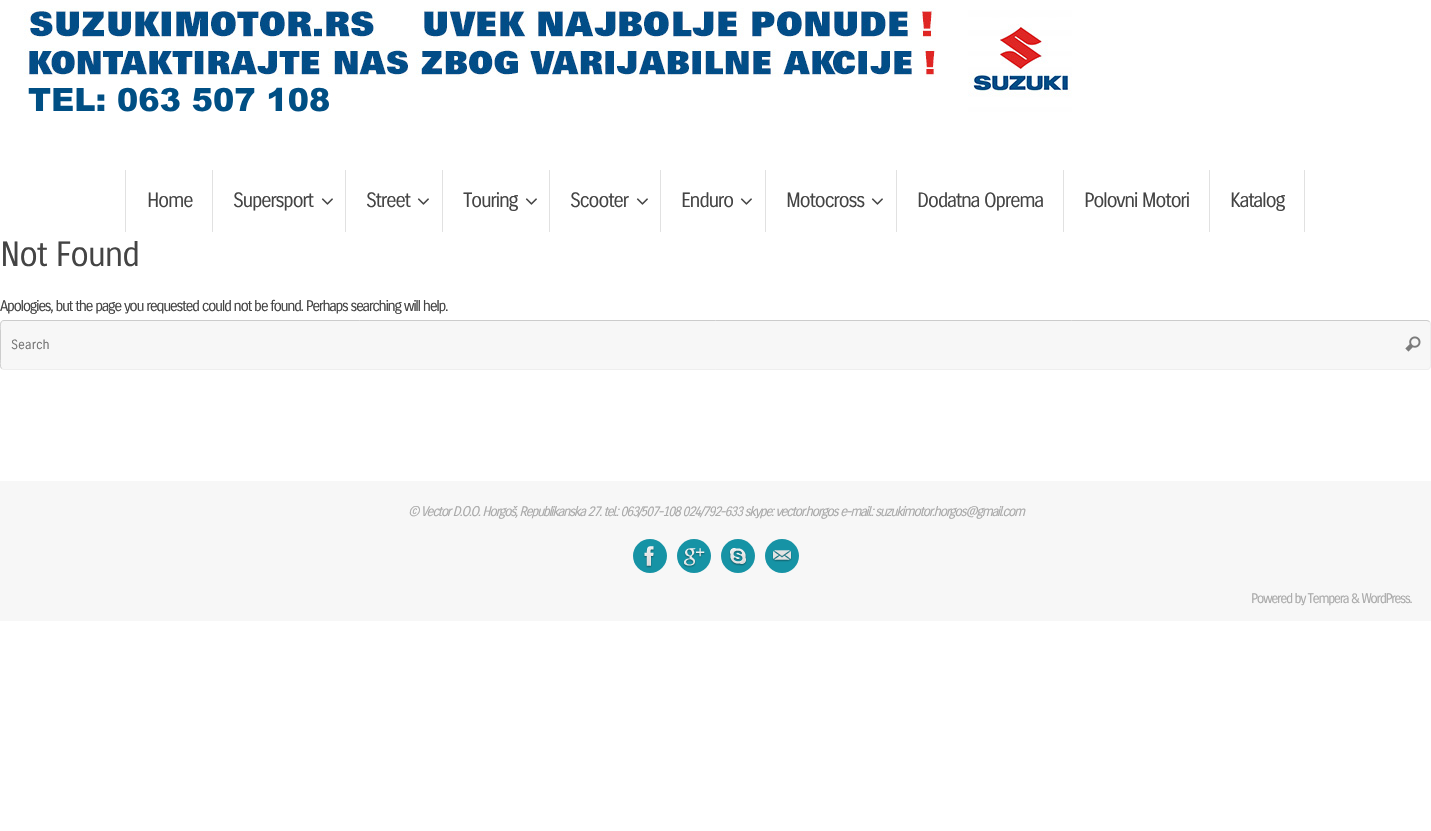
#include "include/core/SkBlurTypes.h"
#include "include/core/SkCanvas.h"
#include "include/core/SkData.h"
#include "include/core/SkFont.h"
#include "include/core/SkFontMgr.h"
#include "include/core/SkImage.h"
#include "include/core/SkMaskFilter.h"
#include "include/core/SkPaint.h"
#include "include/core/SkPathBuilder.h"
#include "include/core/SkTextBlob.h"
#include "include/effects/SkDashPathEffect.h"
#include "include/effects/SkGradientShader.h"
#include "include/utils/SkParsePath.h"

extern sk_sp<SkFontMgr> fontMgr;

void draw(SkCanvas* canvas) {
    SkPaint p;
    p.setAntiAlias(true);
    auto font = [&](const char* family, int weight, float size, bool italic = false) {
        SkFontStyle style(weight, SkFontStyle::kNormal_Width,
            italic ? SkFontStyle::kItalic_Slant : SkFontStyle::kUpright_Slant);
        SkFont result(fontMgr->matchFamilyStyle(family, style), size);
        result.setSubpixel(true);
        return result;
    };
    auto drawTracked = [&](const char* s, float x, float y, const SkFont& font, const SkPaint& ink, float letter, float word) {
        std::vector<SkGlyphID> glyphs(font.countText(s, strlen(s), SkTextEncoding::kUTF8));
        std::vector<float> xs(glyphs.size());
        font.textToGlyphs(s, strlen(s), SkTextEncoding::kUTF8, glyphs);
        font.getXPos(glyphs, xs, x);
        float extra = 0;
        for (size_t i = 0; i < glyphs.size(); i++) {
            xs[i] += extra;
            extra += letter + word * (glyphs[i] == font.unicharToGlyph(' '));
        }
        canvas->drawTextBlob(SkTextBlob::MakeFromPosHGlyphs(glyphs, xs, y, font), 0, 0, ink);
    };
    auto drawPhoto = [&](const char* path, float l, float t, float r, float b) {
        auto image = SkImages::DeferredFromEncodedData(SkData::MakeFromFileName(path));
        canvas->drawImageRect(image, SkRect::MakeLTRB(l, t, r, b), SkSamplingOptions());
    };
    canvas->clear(0xFFFFFFFF);
    drawPhoto("media/1.png", 24, 8, 1072, 112);
    p.setColor(0xFFE1E1E1);
    canvas->drawRect(SkRect::MakeLTRB(125, 170, 126, 232), p);
    canvas->drawRect(SkRect::MakeLTRB(212, 170, 213, 232), p);
    auto font1 = font("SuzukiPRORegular", 400, 20);
    p.setColor(0xFF444444);
    drawTracked("Home", 147, 207, font1, p, -1.4f, 0);
    p.setColor(0xFFE1E1E1);
    canvas->drawRect(SkRect::MakeLTRB(345, 170, 346, 232), p);
    p.setColor(0xFF444444);
    drawTracked("Supersport", 233, 207, font1, p, -1.4f, 0);
    drawPhoto("media/2.png", 321, 198, 333, 205);
    p.setColor(0xFFE1E1E1);
    canvas->drawRect(SkRect::MakeLTRB(442, 170, 443, 232), p);
    p.setColor(0xFF444444);
    drawTracked("Street", 366, 207, font1, p, -1.4f, 0);
    drawPhoto("media/2.png", 417, 198, 429, 205);
    p.setColor(0xFFE1E1E1);
    canvas->drawRect(SkRect::MakeLTRB(549, 170, 550, 232), p);
    p.setColor(0xFF444444);
    drawTracked("Touring", 463, 207, font1, p, -1.4f, 0);
    drawPhoto("media/2.png", 525, 198, 537, 205);
    p.setColor(0xFFE1E1E1);
    canvas->drawRect(SkRect::MakeLTRB(660, 170, 661, 232), p);
    p.setColor(0xFF444444);
    drawTracked("Scooter", 570, 207, font1, p, -1.4f, 0);
    drawPhoto("media/2.png", 636, 198, 648, 205);
    p.setColor(0xFFE1E1E1);
    canvas->drawRect(SkRect::MakeLTRB(765, 170, 766, 232), p);
    p.setColor(0xFF444444);
    drawTracked("Enduro", 681, 207, font1, p, -1.4f, 0);
    drawPhoto("media/2.png", 740, 198, 752, 205);
    p.setColor(0xFFE1E1E1);
    canvas->drawRect(SkRect::MakeLTRB(896, 170, 897, 232), p);
    p.setColor(0xFF444444);
    drawTracked("Motocross", 786, 207, font1, p, -1.4f, 0);
    drawPhoto("media/2.png", 871, 198, 883, 205);
    p.setColor(0xFFE1E1E1);
    canvas->drawRect(SkRect::MakeLTRB(1063, 170, 1064, 232), p);
    p.setColor(0xFF444444);
    drawTracked("Dodatna Oprema", 917, 207, font1, p, -1.4f, 0);
    p.setColor(0xFFE1E1E1);
    canvas->drawRect(SkRect::MakeLTRB(1209, 170, 1210, 232), p);
    p.setColor(0xFF444444);
    drawTracked("Polovni Motori", 1084, 207, font1, p, -1.4f, 0);
    p.setColor(0xFFE1E1E1);
    canvas->drawRect(SkRect::MakeLTRB(1304, 170, 1305, 232), p);
    p.setColor(0xFF444444);
    drawTracked("Katalog", 1230, 207, font1, p, -1.4f, 0);
    auto font2 = font("SuzukiPRORegular", 400, 34);
    drawTracked("Not Found", 0, 266, font2, p, -1.4f, 0);
    auto font3 = font("SuzukiPRORegular", 400, 15);
    drawTracked("Apologies, but the page you requested could not be found. Perhaps searching will help.", 0, 311, font3, p, -1.4f, 0);
    p.setColor(0xFFF7F7F7);
    canvas->drawRoundRect(SkRect::MakeLTRB(0, 320, 1431, 370), 4, 4, p);
    p.setStyle(SkPaint::kStroke_Style);
    p.setStrokeWidth(1);
    p.setColor(0xFFEEEEEE);
    canvas->drawPath(SkPathBuilder().moveTo(1429.5f, 321.5f).cubicTo(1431.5f, 323.5f, 1430.5f, 329.5f, 1430.5f, 331).lineTo(1430.5f, 359).cubicTo(1430.5f, 361.5f, 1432, 369.5f, 1427, 369.5f).lineTo(4, 369.5f).lineTo(1.5f, 368.5f).detach(), p);
    p.setColor(0xFFCCCCCC);
    canvas->drawPath(SkPathBuilder().moveTo(1.5f, 368.5f).cubicTo(-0.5f, 366.5f, 0.5f, 360.5f, 0.5f, 359).lineTo(0.5f, 331).cubicTo(0.5f, 328.5f, -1, 320.5f, 4, 320.5f).lineTo(1427, 320.5f).lineTo(1429.5f, 321.5f).detach(), p);
    auto font4 = font("SuzukiPRORegular", 400, 13);
    p.setStyle(SkPaint::kFill_Style);
    p.setColor(0xFF757575);
    canvas->drawString("Search", 11, 349, font4, p);
    drawPhoto("media/3.png", 1405, 336, 1421, 352);
    p.setColor(0xFFF7F7F7);
    canvas->drawRect(SkRect::MakeLTRB(0, 481, 1431, 621), p);
    auto font5 = font("SuzukiPRORegular", 400, 13.5f, true);
    p.setColor(0xFFAAAAAA);
    drawTracked("© Vector D.O.O. Horgoš, Republikanska 27. tel.: 063/507-108 024/792-633 skype: vector.horgos e-mail.: suzukimotor.horgos@gmail.com", 408, 516, font5, p, -1.4f, 0);
    p.setColor(0xFF1693A5);
    canvas->drawCircle(650, 556, 17, p);
    drawPhoto("media/4.png", 643, 546, 655, 568);
    canvas->drawCircle(694, 556, 17, p);
    drawPhoto("media/5.png", 683, 548, 705, 568);
    canvas->drawCircle(738, 556, 17, p);
    drawPhoto("media/6.png", 729, 548, 747, 566);
    canvas->drawCircle(782, 556, 17, p);
    drawPhoto("media/7.png", 772, 550, 792, 562);
    auto font6 = font("SuzukiPRORegular", 400, 13.5f);
    p.setColor(0xFFAAAAAA);
    drawTracked("Powered by Tempera & WordPress.", 1251, 603, font6, p, -1.4f, 0);
}
